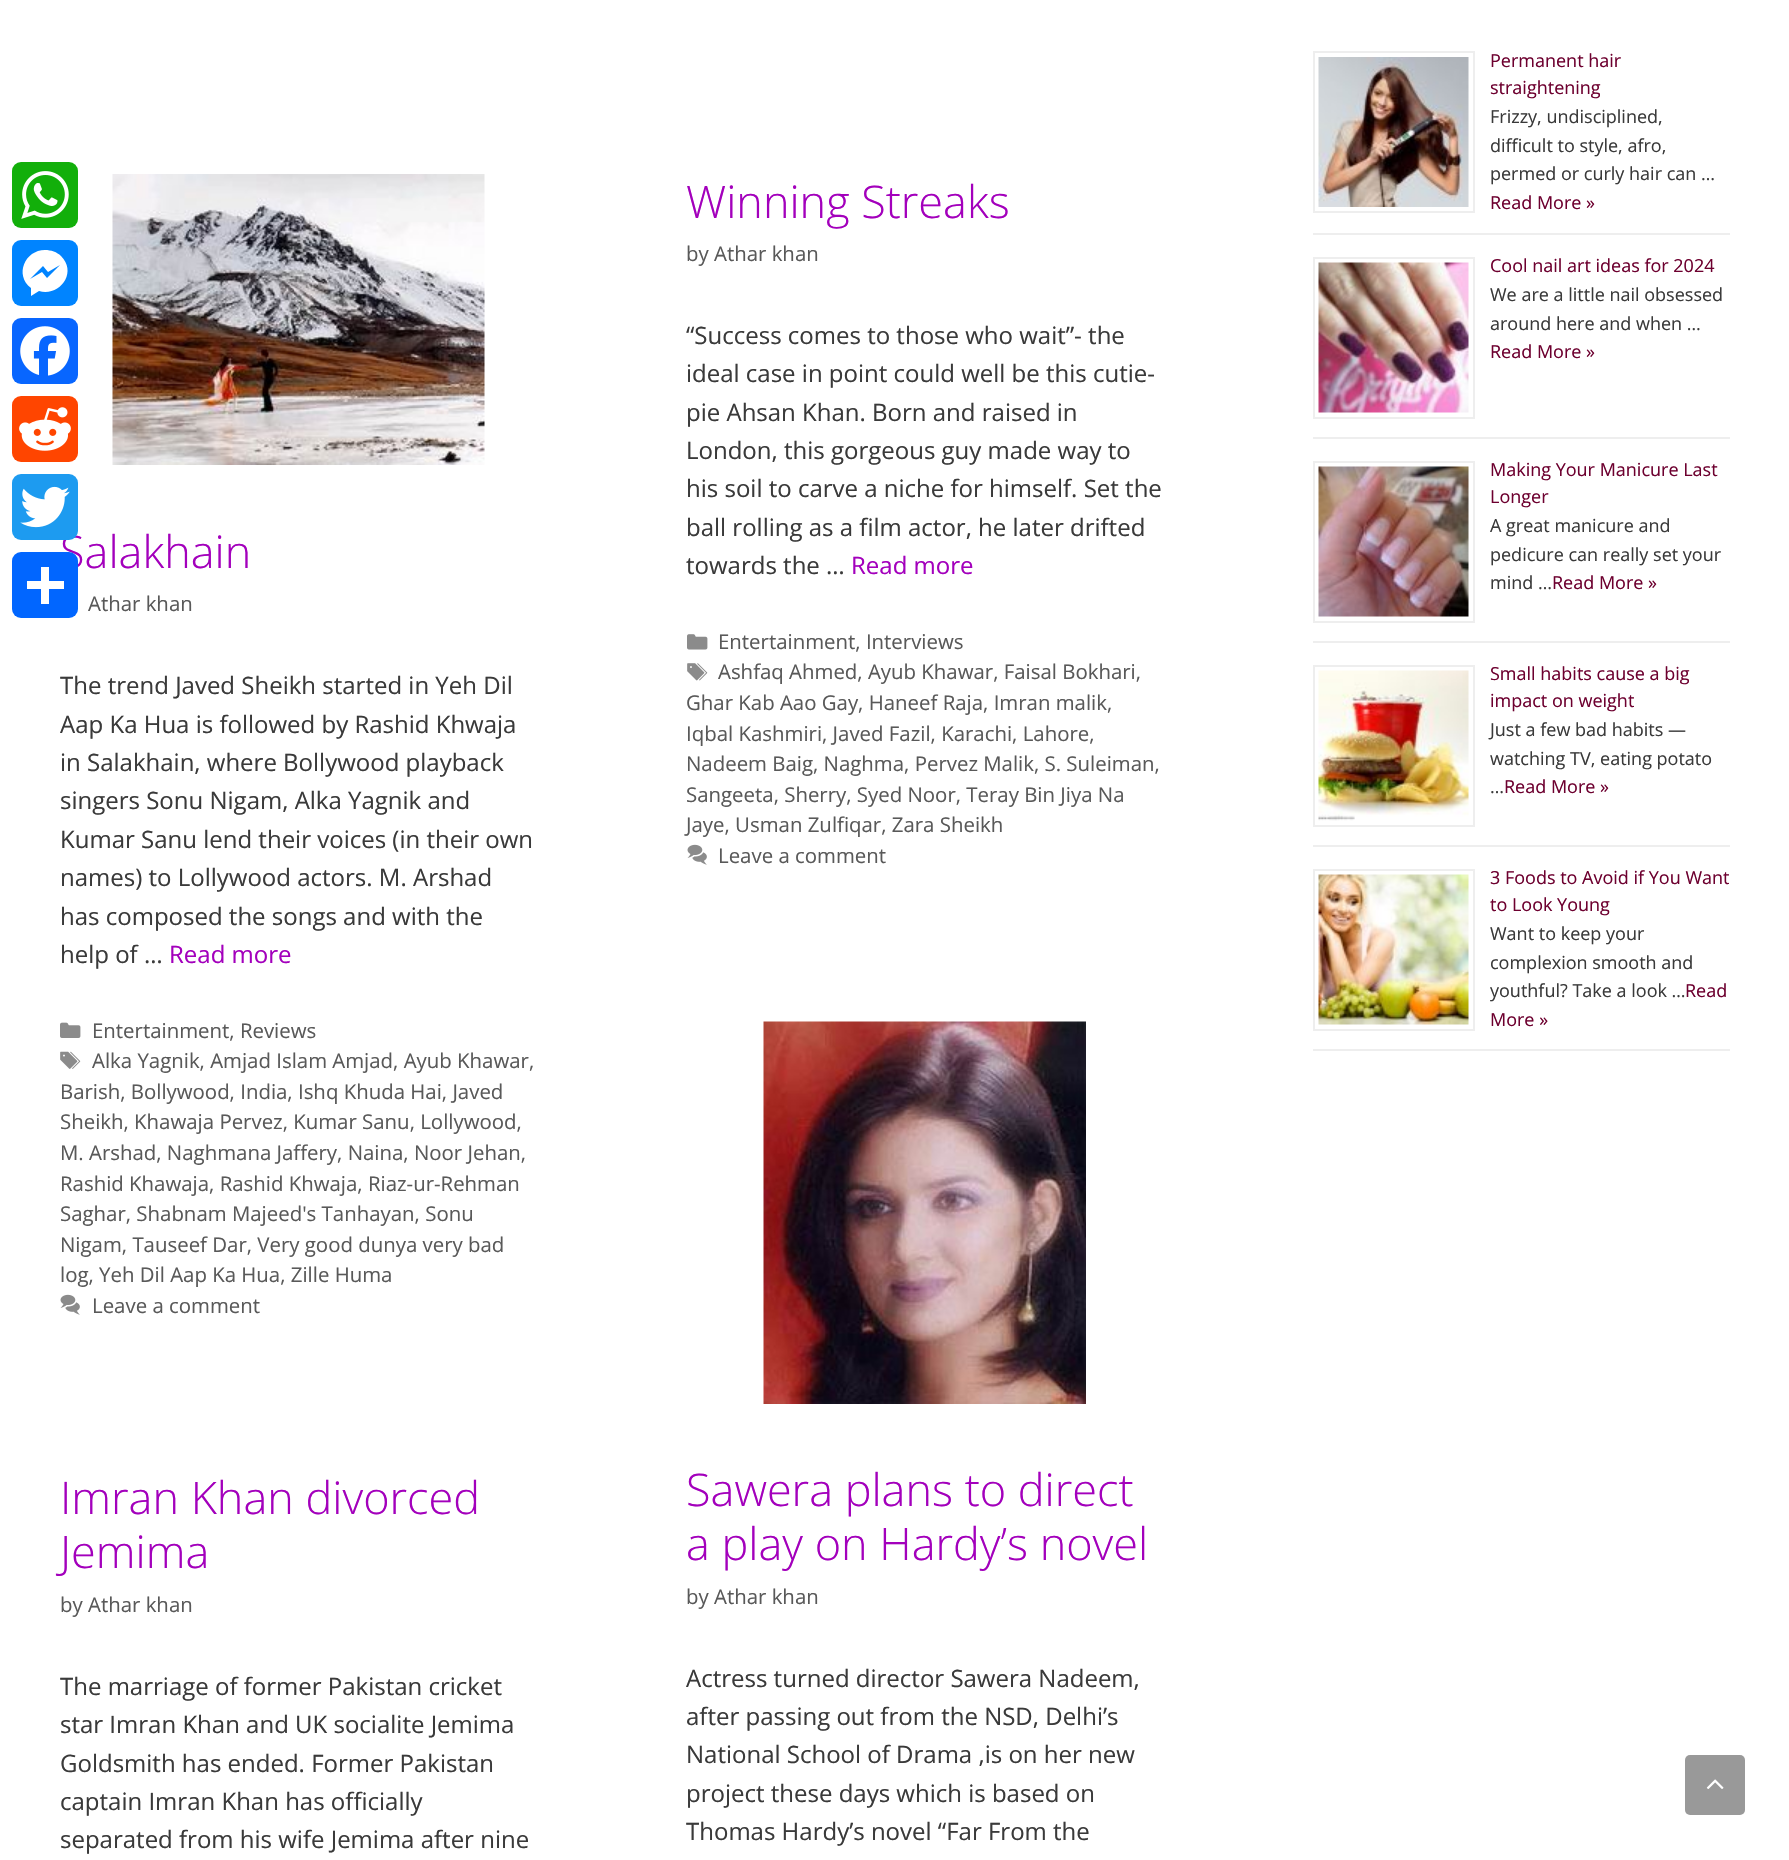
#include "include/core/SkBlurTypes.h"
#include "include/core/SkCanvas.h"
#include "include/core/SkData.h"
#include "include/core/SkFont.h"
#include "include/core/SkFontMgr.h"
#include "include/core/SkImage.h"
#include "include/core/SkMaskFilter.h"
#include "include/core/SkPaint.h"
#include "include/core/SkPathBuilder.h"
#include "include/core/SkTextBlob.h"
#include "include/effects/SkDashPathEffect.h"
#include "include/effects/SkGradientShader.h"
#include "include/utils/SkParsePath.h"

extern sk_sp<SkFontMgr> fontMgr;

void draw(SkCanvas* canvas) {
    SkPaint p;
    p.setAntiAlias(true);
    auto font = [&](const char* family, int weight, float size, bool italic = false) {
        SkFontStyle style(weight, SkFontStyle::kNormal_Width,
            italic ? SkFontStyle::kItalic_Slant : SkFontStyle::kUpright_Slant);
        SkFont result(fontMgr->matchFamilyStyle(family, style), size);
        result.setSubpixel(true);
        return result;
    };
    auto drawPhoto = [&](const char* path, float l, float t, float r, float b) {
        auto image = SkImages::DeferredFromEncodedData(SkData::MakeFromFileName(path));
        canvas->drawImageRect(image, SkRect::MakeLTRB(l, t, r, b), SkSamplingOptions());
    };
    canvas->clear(0xFFFFFFFF);
    p.setColor(0xFF12AF0A);
    canvas->drawRoundRect(SkRect::MakeLTRB(12, 162, 78, 228), 9, 9, p);
    drawPhoto("media/1.png", 21, 171, 69, 219);
    p.setColor(0xFF0084FF);
    canvas->drawRoundRect(SkRect::MakeLTRB(12, 240, 78, 306), 9, 9, p);
    p.setColor(0xFFFFFFFF);
    canvas->drawPath(SkPathBuilder().moveTo(45, 250).cubicTo(25, 250, 14, 275, 31, 288).lineTo(31, 296).lineTo(39, 291).cubicTo(59, 297, 78, 273, 61, 256).cubicTo(57, 252, 51, 250, 45, 250).moveTo(47, 278).lineTo(42, 272).lineTo(30, 279).lineTo(43, 266).lineTo(48, 272).lineTo(60, 265).close().detach(), p);
    p.setColor(0xFF0866FF);
    canvas->drawRoundRect(SkRect::MakeLTRB(12, 318, 78, 384), 9, 9, p);
    drawPhoto("media/2.png", 20, 326, 70, 376);
    p.setColor(0xFFFF4500);
    canvas->drawRoundRect(SkRect::MakeLTRB(12, 396, 78, 462), 9, 9, p);
    drawPhoto("media/3.png", 19, 407, 71, 451);
    auto font1 = font("Open Sans", 300, 45);
    p.setColor(0xFFA300BC);
    canvas->drawString("Salakhain", 60, 568, font1, p);
    p.setColor(0xFF1D9BF0);
    canvas->drawRoundRect(SkRect::MakeLTRB(12, 474, 78, 540), 9, 9, p);
    drawPhoto("media/4.png", 20, 486, 70, 528);
    p.setColor(0xFF0166FF);
    canvas->drawRoundRect(SkRect::MakeLTRB(12, 552, 78, 618), 9, 9, p);
    p.setColor(0xFFFFFFFF);
    canvas->drawRect(SkRect::MakeLTRB(41, 567, 49, 604), p);
    canvas->drawRect(SkRect::MakeLTRB(27, 581, 64, 589), p);
    drawPhoto("media/5.png", 112, 174, 485, 465);
    auto font2 = font("Open Sans", 400, 20.4f);
    p.setColor(0xFF595959);
    canvas->drawString("Athar khan", 88, 611, font2, p);
    auto font3 = font("Open Sans", 400, 24);
    p.setColor(0xFF3A3A3A);
    {
        const struct { const char* s; float x, y; } items[] = {
            {"The trend Javed Sheikh started in Yeh Dil", 60, 694},
            {"Aap Ka Hua is followed by Rashid Khwaja", 60, 733},
            {"in Salakhain, where Bollywood playback", 60, 771},
            {"singers Sonu Nigam, Alka Yagnik and", 60, 809},
            {"Kumar Sanu lend their voices (in their own", 60, 848},
            {"names) to Lollywood actors. M. Arshad", 60, 886},
            {"has composed the songs and with the", 60, 925},
            {"help of …", 60, 963},
        };
        for (auto [s, x, y] : items) {
            canvas->drawString(s, x, y, font3, p);
        }
    }
    p.setColor(0xFFA300BC);
    canvas->drawString("Read more", 169, 963, font3, p);
    drawPhoto("media/6.png", 60, 1022, 81, 1038);
    p.setColor(0xFF595959);
    canvas->drawString("Entertainment, Reviews", 92, 1038, font2, p);
    drawPhoto("media/7.png", 60, 1051, 81, 1069);
    {
        const struct { const char* s; float x, y; } items[] = {
            {"Alka Yagnik, Amjad Islam Amjad, Ayub Khawar,", 92, 1068},
            {"Barish, Bollywood, India, Ishq Khuda Hai, Javed", 60, 1099},
            {"Sheikh, Khawaja Pervez, Kumar Sanu, Lollywood,", 60, 1129},
            {"M. Arshad, Naghmana Jaffery, Naina, Noor Jehan,", 60, 1160},
            {"Rashid Khawaja, Rashid Khwaja, Riaz-ur-Rehman", 60, 1191},
            {"Saghar, Shabnam Majeed's Tanhayan, Sonu", 60, 1221},
            {"Nigam, Tauseef Dar, Very good dunya very bad", 60, 1252},
            {"log, Yeh Dil Aap Ka Hua, Zille Huma", 60, 1282},
        };
        for (auto [s, x, y] : items) {
            canvas->drawString(s, x, y, font2, p);
        }
    }
    drawPhoto("media/8.png", 60, 1294, 80, 1315);
    canvas->drawString("Leave a comment", 92, 1313, font2, p);
    p.setColor(0xFFA300BC);
    canvas->drawString("Winning Streaks", 686, 218, font1, p);
    p.setColor(0xFF595959);
    canvas->drawString("by Athar khan", 686, 261, font2, p);
    p.setColor(0xFF3A3A3A);
    {
        const struct { const char* s; float x, y; } items[] = {
            {"“Success comes to those who wait”- the", 686, 344},
            {"ideal case in point could well be this cutie-", 686, 382},
            {"pie Ahsan Khan. Born and raised in", 686, 421},
            {"London, this gorgeous guy made way to", 686, 459},
            {"his soil to carve a niche for himself. Set the", 686, 497},
            {"ball rolling as a film actor, he later drifted", 686, 536},
            {"towards the …", 686, 574},
        };
        for (auto [s, x, y] : items) {
            canvas->drawString(s, x, y, font3, p);
        }
    }
    p.setColor(0xFFA300BC);
    canvas->drawString("Read more", 851, 574, font3, p);
    drawPhoto("media/9.png", 687, 634, 708, 650);
    p.setColor(0xFF595959);
    canvas->drawString("Entertainment, Interviews", 718, 649, font2, p);
    drawPhoto("media/10.png", 687, 663, 708, 681);
    {
        const struct { const char* s; float x, y; } items[] = {
            {"Ashfaq Ahmed, Ayub Khawar, Faisal Bokhari,", 718, 679},
            {"Ghar Kab Aao Gay, Haneef Raja, Imran malik,", 686, 710},
            {"Iqbal Kashmiri, Javed Fazil, Karachi, Lahore,", 686, 741},
            {"Nadeem Baig, Naghma, Pervez Malik, S. Suleiman,", 686, 771},
            {"Sangeeta, Sherry, Syed Noor, Teray Bin Jiya Na", 686, 802},
            {"Jaye, Usman Zulfiqar, Zara Sheikh", 686, 832},
        };
        for (auto [s, x, y] : items) {
            canvas->drawString(s, x, y, font2, p);
        }
    }
    drawPhoto("media/8.png", 687, 844, 707, 865);
    canvas->drawString("Leave a comment", 718, 863, font2, p);
    p.setColor(0xFFA300BC);
    canvas->drawString("Imran Khan divorced", 60, 1514, font1, p);
    canvas->drawString("Jemima", 60, 1568, font1, p);
    p.setColor(0xFF595959);
    canvas->drawString("by Athar khan", 60, 1612, font2, p);
    p.setColor(0xFF3A3A3A);
    {
        const struct { const char* s; float x, y; } items[] = {
            {"The marriage of former Pakistan cricket", 60, 1695},
            {"star Imran Khan and UK socialite Jemima", 60, 1733},
            {"Goldsmith has ended. Former Pakistan", 60, 1772},
            {"captain Imran Khan has officially", 60, 1810},
            {"separated from his wife Jemima after nine", 60, 1848},
        };
        for (auto [s, x, y] : items) {
            canvas->drawString(s, x, y, font3, p);
        }
    }
    drawPhoto("media/11.png", 763, 1021, 1086, 1404);
    p.setColor(0xFFA300BC);
    canvas->drawString("Sawera plans to direct", 686, 1506, font1, p);
    canvas->drawString("a play on Hardy’s novel", 686, 1560, font1, p);
    p.setColor(0xFF595959);
    canvas->drawString("by Athar khan", 686, 1604, font2, p);
    p.setColor(0xFF3A3A3A);
    {
        const struct { const char* s; float x, y; } items[] = {
            {"Actress turned director Sawera Nadeem,", 686, 1687},
            {"after passing out from the NSD, Delhi’s", 686, 1725},
            {"National School of Drama ,is on her new", 686, 1763},
            {"project these days which is based on", 686, 1802},
            {"Thomas Hardy’s novel “Far From the", 686, 1840},
        };
        for (auto [s, x, y] : items) {
            canvas->drawString(s, x, y, font3, p);
        }
    }
    p.setColor(0xFFEEEEEE);
    canvas->drawRect(SkRect::MakeLTRB(1313, 233, 1730, 235), p);
    p.setStyle(SkPaint::kStroke_Style);
    p.setStrokeWidth(2);
    canvas->drawRect(SkRect::MakeLTRB(1314, 52, 1474, 212), p);
    drawPhoto("media/12.png", 1318, 57, 1469, 207);
    auto font4 = font("Open Sans", 400, 18);
    p.setStyle(SkPaint::kFill_Style);
    p.setColor(0xFF6D002F);
    canvas->drawString("Permanent hair", 1490, 67, font4, p);
    canvas->drawString("straightening", 1490, 94, font4, p);
    p.setColor(0xFF3A3A3A);
    {
        const struct { const char* s; float x, y; } items[] = {
            {"Frizzy, undisciplined,", 1490, 123},
            {"difficult to style, afro,", 1490, 152},
            {"permed or curly hair can …", 1490, 180},
        };
        for (auto [s, x, y] : items) {
            canvas->drawString(s, x, y, font4, p);
        }
    }
    p.setColor(0xFF6D002F);
    canvas->drawString("Read More »", 1490, 209, font4, p);
    p.setColor(0xFFEEEEEE);
    canvas->drawRect(SkRect::MakeLTRB(1313, 437, 1730, 439), p);
    p.setStyle(SkPaint::kStroke_Style);
    canvas->drawRect(SkRect::MakeLTRB(1314, 258, 1474, 418), p);
    drawPhoto("media/13.png", 1318, 262, 1469, 413);
    p.setStyle(SkPaint::kFill_Style);
    p.setColor(0xFF6D002F);
    canvas->drawString("Cool nail art ideas for 2024", 1490, 272, font4, p);
    p.setColor(0xFF3A3A3A);
    canvas->drawString("We are a little nail obsessed", 1490, 301, font4, p);
    canvas->drawString("around here and when …", 1490, 330, font4, p);
    p.setColor(0xFF6D002F);
    canvas->drawString("Read More »", 1490, 358, font4, p);
    p.setColor(0xFFEEEEEE);
    canvas->drawRect(SkRect::MakeLTRB(1313, 641, 1730, 643), p);
    p.setStyle(SkPaint::kStroke_Style);
    canvas->drawRect(SkRect::MakeLTRB(1314, 462, 1474, 622), p);
    drawPhoto("media/14.png", 1318, 466, 1469, 617);
    p.setStyle(SkPaint::kFill_Style);
    p.setColor(0xFF6D002F);
    canvas->drawString("Making Your Manicure Last", 1490, 476, font4, p);
    canvas->drawString("Longer", 1490, 503, font4, p);
    p.setColor(0xFF3A3A3A);
    {
        const struct { const char* s; float x, y; } items[] = {
            {"A great manicure and", 1490, 532},
            {"pedicure can really set your", 1490, 561},
            {"mind …", 1490, 589},
        };
        for (auto [s, x, y] : items) {
            canvas->drawString(s, x, y, font4, p);
        }
    }
    p.setColor(0xFF6D002F);
    canvas->drawString("Read More »", 1552, 589, font4, p);
    p.setColor(0xFFEEEEEE);
    canvas->drawRect(SkRect::MakeLTRB(1313, 845, 1730, 847), p);
    p.setStyle(SkPaint::kStroke_Style);
    canvas->drawRect(SkRect::MakeLTRB(1314, 666, 1474, 826), p);
    drawPhoto("media/15.png", 1318, 670, 1469, 821);
    p.setStyle(SkPaint::kFill_Style);
    p.setColor(0xFF6D002F);
    canvas->drawString("Small habits cause a big", 1490, 680, font4, p);
    canvas->drawString("impact on weight", 1490, 707, font4, p);
    p.setColor(0xFF3A3A3A);
    {
        const struct { const char* s; float x, y; } items[] = {
            {"Just a few bad habits —", 1490, 736},
            {"watching TV, eating potato", 1490, 765},
            {"…", 1490, 793},
        };
        for (auto [s, x, y] : items) {
            canvas->drawString(s, x, y, font4, p);
        }
    }
    p.setColor(0xFF6D002F);
    canvas->drawString("Read More »", 1504, 793, font4, p);
    p.setColor(0xFFEEEEEE);
    canvas->drawRect(SkRect::MakeLTRB(1313, 1049, 1730, 1051), p);
    p.setStyle(SkPaint::kStroke_Style);
    canvas->drawRect(SkRect::MakeLTRB(1314, 870, 1474, 1030), p);
    drawPhoto("media/16.png", 1318, 874, 1469, 1025);
    p.setStyle(SkPaint::kFill_Style);
    p.setColor(0xFF6D002F);
    canvas->drawString("3 Foods to Avoid if You Want", 1490, 884, font4, p);
    canvas->drawString("to Look Young", 1490, 911, font4, p);
    p.setColor(0xFF3A3A3A);
    {
        const struct { const char* s; float x, y; } items[] = {
            {"Want to keep your", 1490, 940},
            {"complexion smooth and", 1490, 969},
            {"youthful? Take a look …", 1490, 997},
        };
        for (auto [s, x, y] : items) {
            canvas->drawString(s, x, y, font4, p);
        }
    }
    p.setColor(0xFF6D002F);
    canvas->drawString("Read", 1685, 997, font4, p);
    canvas->drawString("More »", 1490, 1026, font4, p);
    p.setColor(0xFF999999);
    canvas->drawRoundRect(SkRect::MakeLTRB(1685, 1755, 1745, 1815), 5, 5, p);
    drawPhoto("media/17.png", 1706, 1779, 1724, 1789);
}
